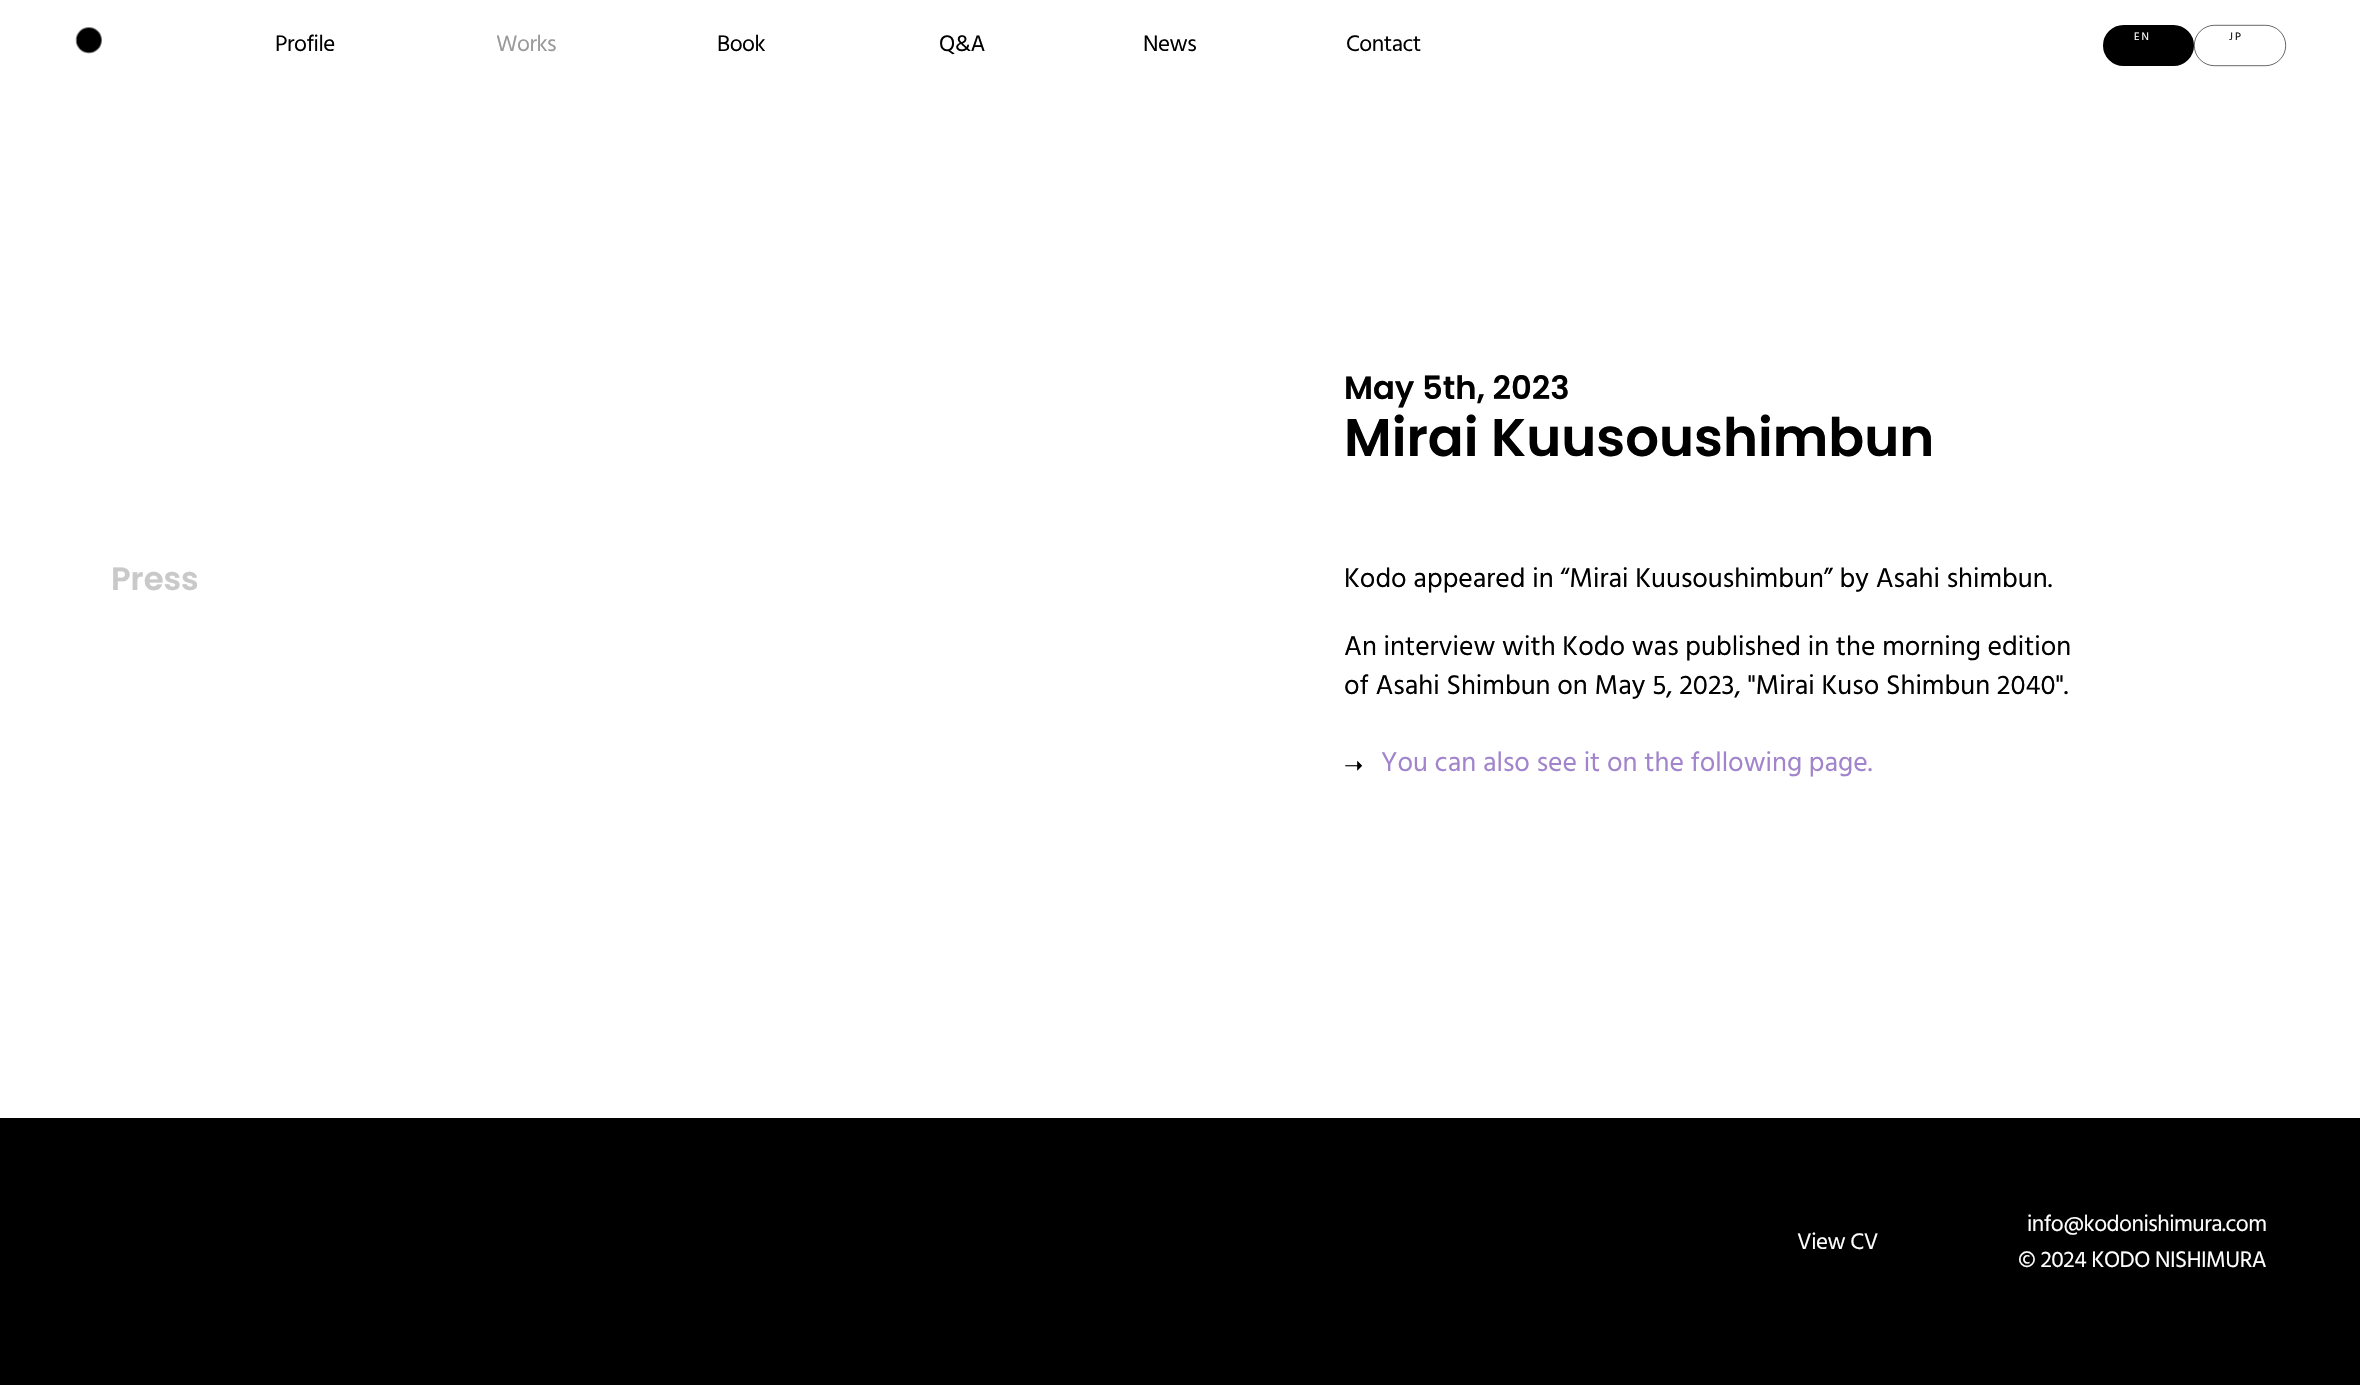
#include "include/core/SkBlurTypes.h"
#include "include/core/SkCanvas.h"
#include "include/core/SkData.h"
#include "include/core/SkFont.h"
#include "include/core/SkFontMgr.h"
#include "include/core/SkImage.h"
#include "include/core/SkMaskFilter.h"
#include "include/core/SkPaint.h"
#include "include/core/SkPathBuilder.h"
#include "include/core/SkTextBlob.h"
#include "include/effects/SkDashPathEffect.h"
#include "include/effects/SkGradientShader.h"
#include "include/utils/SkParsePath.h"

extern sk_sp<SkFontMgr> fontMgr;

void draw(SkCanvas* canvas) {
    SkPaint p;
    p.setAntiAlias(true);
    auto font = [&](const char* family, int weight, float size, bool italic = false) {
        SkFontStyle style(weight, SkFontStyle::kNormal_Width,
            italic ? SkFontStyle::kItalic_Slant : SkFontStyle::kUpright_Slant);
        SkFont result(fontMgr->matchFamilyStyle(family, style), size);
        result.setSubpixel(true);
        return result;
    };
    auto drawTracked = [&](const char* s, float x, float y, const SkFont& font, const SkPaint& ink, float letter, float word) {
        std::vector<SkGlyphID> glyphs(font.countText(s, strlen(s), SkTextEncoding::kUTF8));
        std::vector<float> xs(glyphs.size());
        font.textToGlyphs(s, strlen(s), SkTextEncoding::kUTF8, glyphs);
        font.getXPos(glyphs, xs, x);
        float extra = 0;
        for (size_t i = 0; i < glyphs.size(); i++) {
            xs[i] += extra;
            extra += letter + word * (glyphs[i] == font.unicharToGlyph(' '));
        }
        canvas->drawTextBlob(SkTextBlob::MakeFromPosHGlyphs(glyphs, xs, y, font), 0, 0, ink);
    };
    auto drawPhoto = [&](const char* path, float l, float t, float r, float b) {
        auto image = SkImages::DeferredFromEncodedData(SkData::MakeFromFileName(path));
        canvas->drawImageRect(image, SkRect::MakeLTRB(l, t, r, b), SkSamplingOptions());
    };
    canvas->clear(0xFFFFFFFF);
    drawPhoto("media/1.png", 75, 27, 102, 54);
    auto font1 = font("Hind", 400, 23);
    p.setColor(0xFF000000);
    drawTracked("Profile", 275, 51, font1, p, -0.5f, 0);
    p.setColor(0xFF999999);
    drawTracked("Works", 496, 51, font1, p, -0.5f, 0);
    p.setColor(0xFF000000);
    {
        const struct { const char* s; float x, y; } items[] = {
            {"Book", 717, 51},
            {"Q&A", 939, 51},
            {"News", 1143, 51},
            {"Contact", 1346, 51},
        };
        for (auto [s, x, y] : items) {
            drawTracked(s, x, y, font1, p, -0.5f, 0);
        }
    }
    canvas->drawRoundRect(SkRect::MakeLTRB(2104, 26, 2193, 65), 19.5f, 19.5f, p);
    p.setStyle(SkPaint::kStroke_Style);
    p.setStrokeWidth(2);
    canvas->drawRoundRect(SkRect::MakeLTRB(2104, 26, 2193, 65), 19.5f, 19.5f, p);
    auto font2 = font("Hind", 400, 11);
    p.setStyle(SkPaint::kFill_Style);
    p.setColor(0xFFFFFFFF);
    drawTracked("EN", 2134, 40, font2, p, 2, 0);
    p.setStyle(SkPaint::kStroke_Style);
    p.setStrokeWidth(0.6f);
    p.setColor(0xFF000000);
    canvas->drawRoundRect(SkRect::MakeLTRB(2194.3f, 25.3f, 2285.7f, 65.7f), 20.2f, 20.2f, p);
    p.setStyle(SkPaint::kFill_Style);
    drawTracked("JP", 2229, 40, font2, p, 2, 0);
    auto font3 = font("Poppins", 600, 32.25f);
    p.setColor(0xFFC9C9C9);
    canvas->drawString("Press", 111, 590, font3, p);
    p.setColor(0xFF000000);
    canvas->drawString("May 5th, 2023", 1344, 399, font3, p);
    auto font4 = font("Poppins", 600, 53);
    canvas->drawString("Mirai Kuusoushimbun", 1344, 456, font4, p);
    auto font5 = font("Hind", 400, 27.65f);
    {
        const struct { const char* s; float x, y; } items[] = {
            {"Kodo appeared in “Mirai Kuusoushimbun” by Asahi shimbun.", 1344, 587},
            {"An interview with Kodo was published in the morning edition", 1344, 655},
            {"of Asahi Shimbun on May 5, 2023, \"Mirai Kuso Shimbun 2040\".", 1344, 694},
        };
        for (auto [s, x, y] : items) {
            canvas->drawString(s, x, y, font5, p);
        }
    }
    auto font6 = font("DejaVu Sans", 400, 23);
    canvas->drawString("➝", 1344, 773, font6, p);
    p.setColor(0xFFA184CB);
    canvas->drawString("You can also see it on the following page.", 1381, 771, font5, p);
    p.setColor(0xFF000000);
    canvas->drawRect(SkRect::MakeLTRB(0, 1118, 2360, 1385), p);
    p.setColor(0xFFFFFFFF);
    {
        const struct { const char* s; float x, y; } items[] = {
            {"View CV", 1797, 1249},
            {"info@kodonishimura.com", 2027, 1231},
            {"© 2024 KODO NISHIMURA", 2018, 1267},
        };
        for (auto [s, x, y] : items) {
            drawTracked(s, x, y, font1, p, -0.5f, 0);
        }
    }
}
